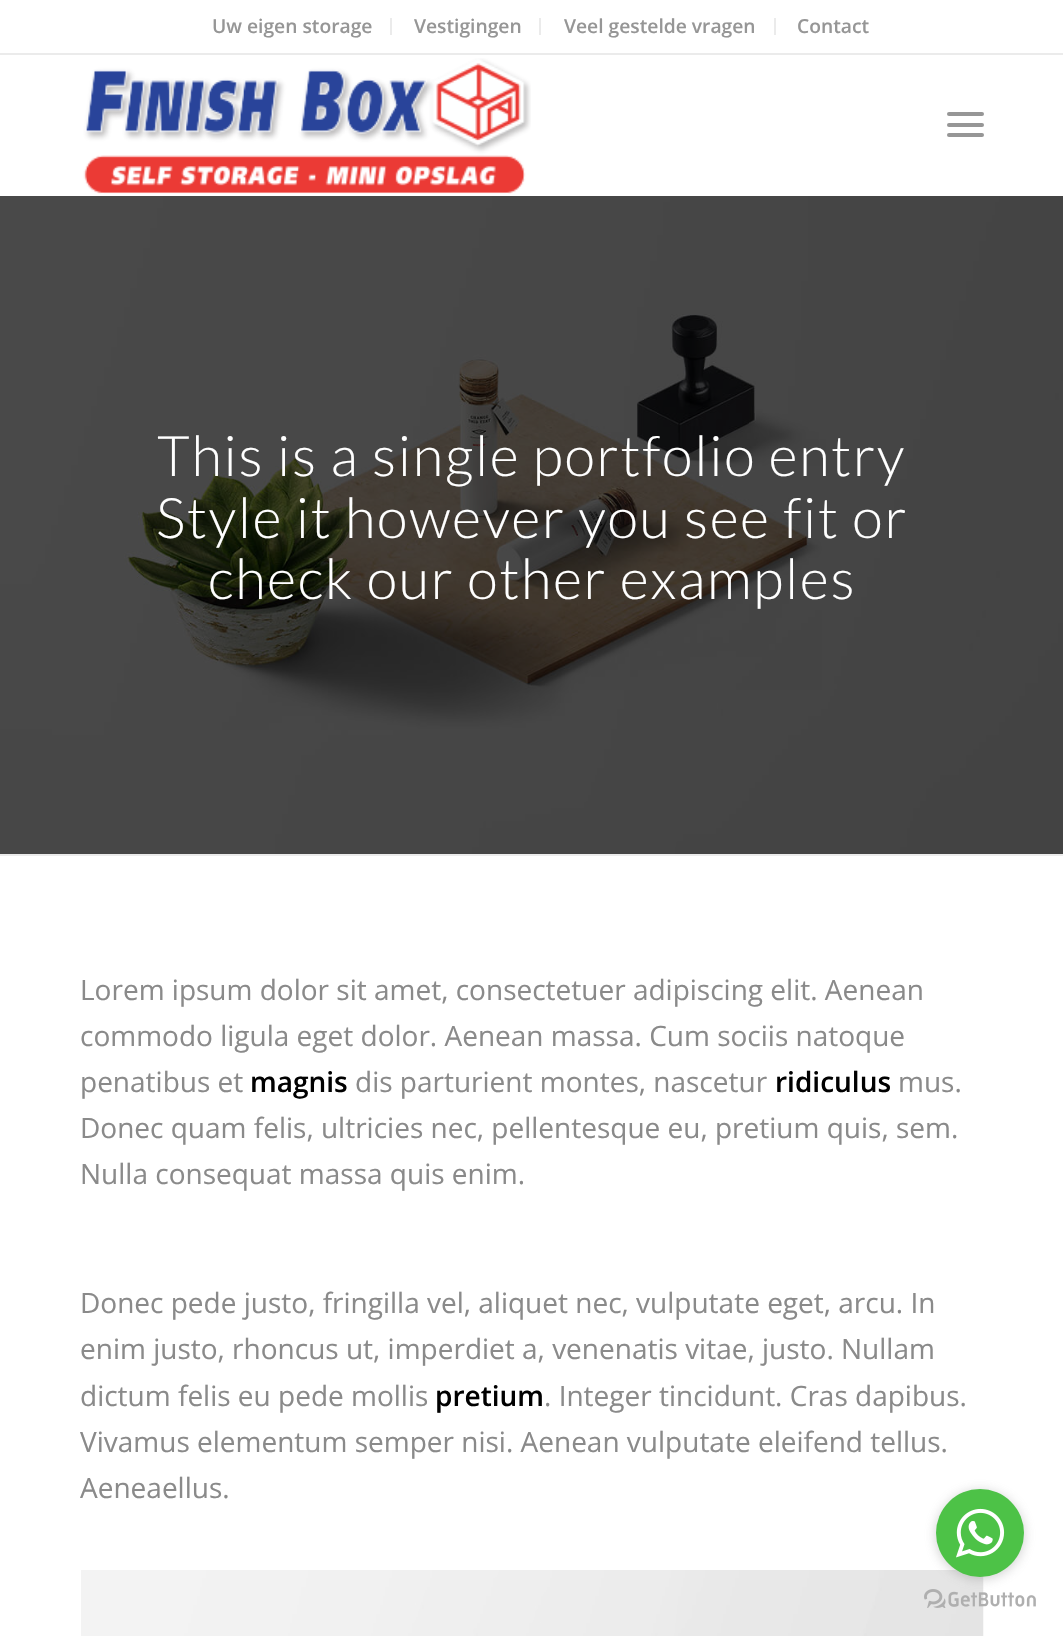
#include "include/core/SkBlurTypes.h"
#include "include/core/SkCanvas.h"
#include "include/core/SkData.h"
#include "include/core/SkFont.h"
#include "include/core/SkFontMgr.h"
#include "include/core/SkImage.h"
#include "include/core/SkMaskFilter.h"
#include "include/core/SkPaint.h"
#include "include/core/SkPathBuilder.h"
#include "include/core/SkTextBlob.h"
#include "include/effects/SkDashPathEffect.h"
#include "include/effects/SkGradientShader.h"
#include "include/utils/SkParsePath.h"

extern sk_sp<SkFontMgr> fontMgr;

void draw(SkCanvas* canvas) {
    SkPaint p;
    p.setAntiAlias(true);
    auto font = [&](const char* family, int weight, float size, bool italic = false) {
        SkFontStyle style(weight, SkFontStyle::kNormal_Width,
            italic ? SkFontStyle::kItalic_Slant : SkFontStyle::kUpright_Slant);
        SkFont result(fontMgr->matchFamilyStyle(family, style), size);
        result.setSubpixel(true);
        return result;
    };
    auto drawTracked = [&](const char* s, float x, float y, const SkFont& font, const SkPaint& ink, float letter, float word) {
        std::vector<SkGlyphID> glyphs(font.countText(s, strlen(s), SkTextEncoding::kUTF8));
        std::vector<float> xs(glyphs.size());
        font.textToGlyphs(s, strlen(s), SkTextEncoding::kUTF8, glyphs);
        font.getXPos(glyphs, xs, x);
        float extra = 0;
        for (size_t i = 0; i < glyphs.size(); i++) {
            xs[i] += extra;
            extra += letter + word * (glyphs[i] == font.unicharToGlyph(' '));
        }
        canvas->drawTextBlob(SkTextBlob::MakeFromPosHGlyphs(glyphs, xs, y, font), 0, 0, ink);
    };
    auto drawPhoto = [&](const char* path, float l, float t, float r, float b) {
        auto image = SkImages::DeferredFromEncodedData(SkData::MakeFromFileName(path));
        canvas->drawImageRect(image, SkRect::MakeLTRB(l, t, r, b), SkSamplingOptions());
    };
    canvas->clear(0xFFFFFFFF);
    p.setColor(0xFFEBEBEB);
    canvas->drawRect(SkRect::MakeLTRB(0, 53, 1063, 55), p);
    canvas->drawRect(SkRect::MakeLTRB(390, 18, 392, 35), p);
    auto font1 = font("Open Sans", 600, 19.25f);
    p.setColor(0xFF969696);
    canvas->drawString("Uw eigen storage", 212, 33, font1, p);
    p.setColor(0xFFEBEBEB);
    canvas->drawRect(SkRect::MakeLTRB(539, 18, 541, 35), p);
    p.setColor(0xFF969696);
    canvas->drawString("Vestigingen", 414, 33, font1, p);
    p.setColor(0xFFEBEBEB);
    canvas->drawRect(SkRect::MakeLTRB(774, 18, 776, 35), p);
    p.setColor(0xFF969696);
    canvas->drawString("Veel gestelde vragen", 564, 33, font1, p);
    canvas->drawString("Contact", 797, 33, font1, p);
    drawPhoto("media/1.png", 83, 58, 531, 194);
    canvas->drawRoundRect(SkRect::MakeLTRB(947, 123, 984, 127), 2, 2, p);
    canvas->drawRoundRect(SkRect::MakeLTRB(947, 112, 984, 116), 2, 2, p);
    canvas->drawRoundRect(SkRect::MakeLTRB(947, 133, 984, 137), 2, 2, p);
    drawPhoto("media/2.png", 0, 196, 1063, 854);
    auto font2 = font("Lato", 300, 56);
    p.setColor(0xFFFFFFFF);
    {
        const struct { const char* s; float x, y; } items[] = {
            {"This is a single portfolio entry", 157, 476},
            {"Style it however you see fit or", 156, 538},
            {"check our other examples", 208, 599},
        };
        for (auto [s, x, y] : items) {
            drawTracked(s, x, y, font2, p, 1.75f, 0);
        }
    }
    p.setColor(0xFFEBEBEB);
    canvas->drawRect(SkRect::MakeLTRB(0, 854, 1063, 856), p);
    auto font3 = font("Open Sans", 400, 28);
    p.setColor(0xFF8A8A8A);
    {
        const struct { const char* s; float x, y; } items[] = {
            {"Lorem ipsum dolor sit amet, consectetuer adipiscing elit. Aenean", 80, 1000},
            {"commodo ligula eget dolor. Aenean massa. Cum sociis natoque", 80, 1046},
            {"penatibus et", 80, 1092},
        };
        for (auto [s, x, y] : items) {
            canvas->drawString(s, x, y, font3, p);
        }
    }
    auto font4 = font("Open Sans", 600, 28);
    p.setColor(0xFF000000);
    canvas->drawString("magnis", 250, 1092, font4, p);
    p.setColor(0xFF8A8A8A);
    canvas->drawString("dis parturient montes, nascetur", 355, 1092, font3, p);
    p.setColor(0xFF000000);
    canvas->drawString("ridiculus", 775, 1092, font4, p);
    p.setColor(0xFF8A8A8A);
    {
        const struct { const char* s; float x, y; } items[] = {
            {"mus.", 898, 1092},
            {"Donec quam felis, ultricies nec, pellentesque eu, pretium quis, sem.", 80, 1138},
            {"Nulla consequat massa quis enim.", 80, 1184},
            {"Donec pede justo, fringilla vel, aliquet nec, vulputate eget, arcu. In", 80, 1313},
            {"enim justo, rhoncus ut, imperdiet a, venenatis vitae, justo. Nullam", 80, 1359},
            {"dictum felis eu pede mollis", 80, 1406},
        };
        for (auto [s, x, y] : items) {
            canvas->drawString(s, x, y, font3, p);
        }
    }
    p.setColor(0xFF000000);
    canvas->drawString("pretium", 435, 1406, font4, p);
    p.setColor(0xFF8A8A8A);
    {
        const struct { const char* s; float x, y; } items[] = {
            {". Integer tincidunt. Cras dapibus.", 544, 1406},
            {"Vivamus elementum semper nisi. Aenean vulputate eleifend tellus.", 80, 1452},
            {"Aeneaellus.", 80, 1498},
        };
        for (auto [s, x, y] : items) {
            canvas->drawString(s, x, y, font3, p);
        }
    }
    drawPhoto("media/3.png", 81, 1570, 984, 1636);
    drawPhoto("media/5.png", 924, 1589, 1036, 1608);
    p.setColor(0x66888888);
    p.setMaskFilter(SkMaskFilter::MakeBlur(kNormal_SkBlurStyle, 6));
    canvas->drawRoundRect(SkRect::MakeLTRB(936, 1491, 1024, 1579), 44, 44, p);
    p.setMaskFilter(nullptr);
    p.setColor(0xFF4DC247);
    canvas->drawCircle(980, 1533, 44, p);
    drawPhoto("media/4.png", 956, 1508, 1005, 1558);
}
